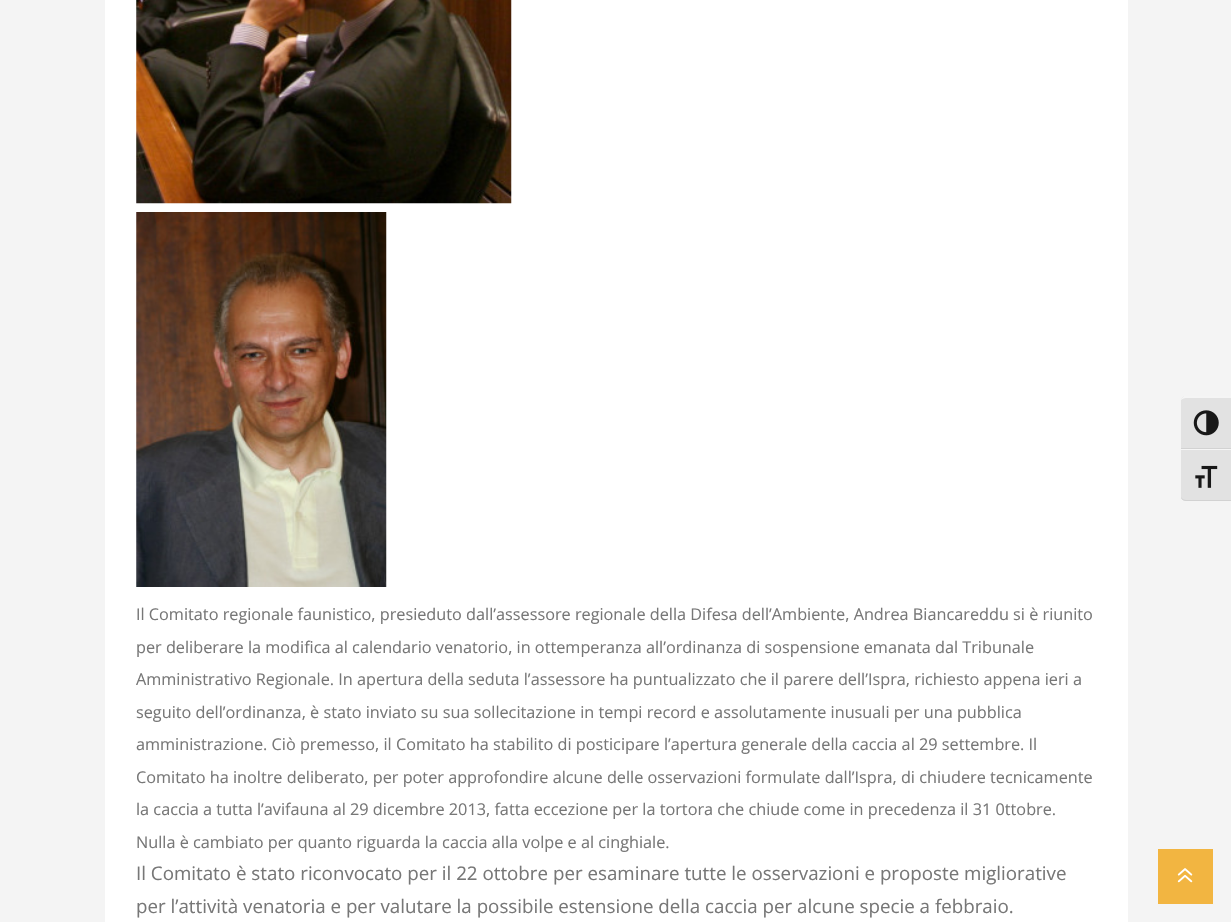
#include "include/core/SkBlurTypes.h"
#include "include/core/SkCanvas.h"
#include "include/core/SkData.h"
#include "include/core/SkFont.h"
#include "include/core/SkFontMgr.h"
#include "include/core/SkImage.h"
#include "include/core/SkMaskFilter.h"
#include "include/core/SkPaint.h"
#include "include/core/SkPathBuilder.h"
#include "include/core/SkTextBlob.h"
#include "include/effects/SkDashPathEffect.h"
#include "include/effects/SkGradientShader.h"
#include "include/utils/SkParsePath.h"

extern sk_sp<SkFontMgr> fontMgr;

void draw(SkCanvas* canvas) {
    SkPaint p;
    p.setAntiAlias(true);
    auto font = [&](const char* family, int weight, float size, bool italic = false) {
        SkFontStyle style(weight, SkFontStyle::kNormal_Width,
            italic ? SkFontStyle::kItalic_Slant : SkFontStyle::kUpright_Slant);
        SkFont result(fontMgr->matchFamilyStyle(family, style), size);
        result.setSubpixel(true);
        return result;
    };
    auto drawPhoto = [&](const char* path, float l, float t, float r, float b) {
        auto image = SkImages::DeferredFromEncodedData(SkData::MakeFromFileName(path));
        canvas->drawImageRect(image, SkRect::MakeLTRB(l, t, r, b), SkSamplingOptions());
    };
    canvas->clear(0xFFF4F4F4);
    p.setColor(0xFFE2E2E2);
    canvas->drawPath(SkPathBuilder().moveTo(1186, 396).lineTo(1231, 396).lineTo(1231, 449).lineTo(1181, 449).lineTo(1181, 401).cubicTo(1181, 398, 1183, 396, 1186, 396).close().detach(), p);
    p.setColor(0xFFF5F5F5);
    canvas->drawPath(SkPathBuilder().moveTo(1186, 398).cubicTo(1184, 398, 1182, 399, 1181, 400).lineTo(1181, 399).cubicTo(1182, 398, 1183, 397, 1184, 396).lineTo(1231, 396).lineTo(1231, 398).close().detach(), p);
    p.setColor(0xFFD2D2D2);
    canvas->drawRect(SkRect::MakeLTRB(1181, 448, 1231, 449), p);
    drawPhoto("media/1.png", 1193, 410, 1219, 436);
    p.setColor(0xFFE2E2E2);
    canvas->drawPath(SkPathBuilder().moveTo(1181, 449).lineTo(1231, 449).lineTo(1231, 501).lineTo(1186, 501).cubicTo(1183, 501, 1181, 499, 1181, 496).close().detach(), p);
    p.setColor(0xFFF5F5F5);
    canvas->drawRect(SkRect::MakeLTRB(1181, 449, 1231, 450), p);
    p.setColor(0xFFD2D2D2);
    canvas->drawPath(SkPathBuilder().moveTo(1231, 501).lineTo(1231, 500).lineTo(1186, 500).cubicTo(1184, 500, 1182, 499, 1181, 497).lineTo(1181, 498).cubicTo(1182, 500, 1184, 501, 1186, 501).close().detach(), p);
    drawPhoto("media/2.png", 1195, 465, 1218, 488);
    p.setColor(0xFFFFFFFF);
    canvas->drawRect(SkRect::MakeLTRB(105, 0, 1128, 922), p);
    drawPhoto("media/3.png", 136, 0, 512, 204);
    drawPhoto("media/4.png", 136, 212, 387, 587);
    auto font1 = font("Open Sans", 400, 16.25f);
    p.setColor(0xFF777777);
    {
        const struct { const char* s; float x, y; } items[] = {
            {"Il Comitato regionale faunistico, presieduto dall’assessore regionale della Difesa dell’Ambiente, Andrea Biancareddu si è riunito", 136, 620},
            {"per deliberare la modifica al calendario venatorio, in ottemperanza all’ordinanza di sospensione emanata dal Tribunale", 136, 653},
            {"Amministrativo Regionale. In apertura della seduta l’assessore ha puntualizzato che il parere dell’Ispra, richiesto appena ieri a", 136, 685},
            {"seguito dell’ordinanza, è stato inviato su sua sollecitazione in tempi record e assolutamente inusuali per una pubblica", 136, 718},
            {"amministrazione. Ciò premesso, il Comitato ha stabilito di posticipare l’apertura generale della caccia al 29 settembre. Il", 136, 750},
            {"Comitato ha inoltre deliberato, per poter approfondire alcune delle osservazioni formulate dall’Ispra, di chiudere tecnicamente", 136, 783},
            {"la caccia a tutta l’avifauna al 29 dicembre 2013, fatta eccezione per la tortora che chiude come in precedenza il 31 0ttobre.", 136, 815},
            {"Nulla è cambiato per quanto riguarda la caccia alla volpe e al cinghiale.", 136, 848},
        };
        for (auto [s, x, y] : items) {
            canvas->drawString(s, x, y, font1, p);
        }
    }
    auto font2 = font("Open Sans", 400, 18.75f);
    canvas->drawString("Il Comitato è stato riconvocato per il 22 ottobre per esaminare tutte le osservazioni e proposte migliorative", 136, 880, font2, p);
    canvas->drawString("per l’attività venatoria e per valutare la possibile estensione della caccia per alcune specie a febbraio.", 136, 913, font2, p);
    p.setColor(0xFFF2B541);
    canvas->drawRect(SkRect::MakeLTRB(1158, 849, 1213, 904), p);
    drawPhoto("media/5.png", 1177, 868, 1193, 883);
}
